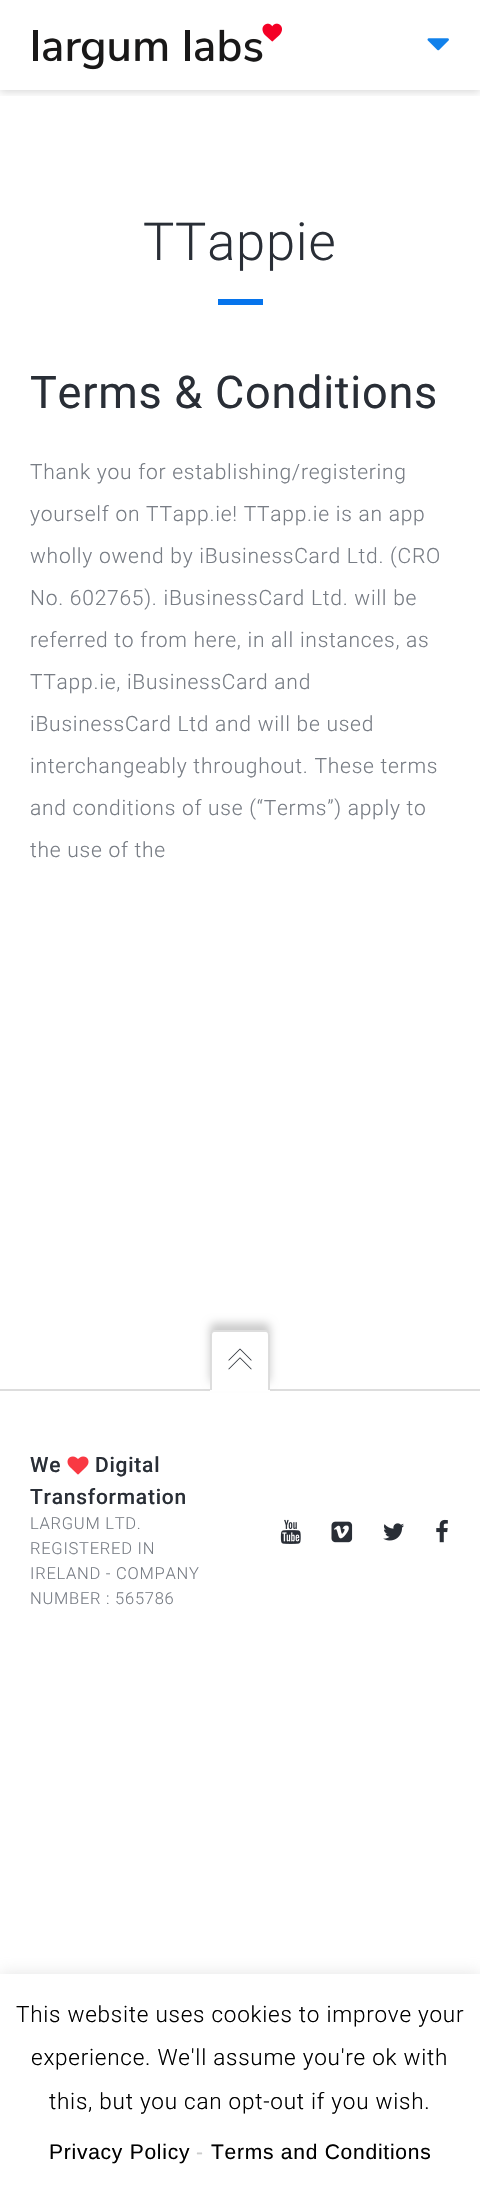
#include "include/core/SkBlurTypes.h"
#include "include/core/SkCanvas.h"
#include "include/core/SkData.h"
#include "include/core/SkFont.h"
#include "include/core/SkFontMgr.h"
#include "include/core/SkImage.h"
#include "include/core/SkMaskFilter.h"
#include "include/core/SkPaint.h"
#include "include/core/SkPathBuilder.h"
#include "include/core/SkTextBlob.h"
#include "include/effects/SkDashPathEffect.h"
#include "include/effects/SkGradientShader.h"
#include "include/utils/SkParsePath.h"

extern sk_sp<SkFontMgr> fontMgr;

void draw(SkCanvas* canvas) {
    SkPaint p;
    p.setAntiAlias(true);
    auto font = [&](const char* family, int weight, float size, bool italic = false) {
        SkFontStyle style(weight, SkFontStyle::kNormal_Width,
            italic ? SkFontStyle::kItalic_Slant : SkFontStyle::kUpright_Slant);
        SkFont result(fontMgr->matchFamilyStyle(family, style), size);
        result.setSubpixel(true);
        return result;
    };
    auto drawTracked = [&](const char* s, float x, float y, const SkFont& font, const SkPaint& ink, float letter, float word) {
        std::vector<SkGlyphID> glyphs(font.countText(s, strlen(s), SkTextEncoding::kUTF8));
        std::vector<float> xs(glyphs.size());
        font.textToGlyphs(s, strlen(s), SkTextEncoding::kUTF8, glyphs);
        font.getXPos(glyphs, xs, x);
        float extra = 0;
        for (size_t i = 0; i < glyphs.size(); i++) {
            xs[i] += extra;
            extra += letter + word * (glyphs[i] == font.unicharToGlyph(' '));
        }
        canvas->drawTextBlob(SkTextBlob::MakeFromPosHGlyphs(glyphs, xs, y, font), 0, 0, ink);
    };
    auto drawPhoto = [&](const char* path, float l, float t, float r, float b) {
        auto image = SkImages::DeferredFromEncodedData(SkData::MakeFromFileName(path));
        canvas->drawImageRect(image, SkRect::MakeLTRB(l, t, r, b), SkSamplingOptions());
    };
    canvas->clear(0xFFFFFFFF);
    canvas->save();
    canvas->clipRect(SkRect::MakeLTRB(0, 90, 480, 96));
    p.setColor(0x26000000);
    p.setMaskFilter(SkMaskFilter::MakeBlur(kNormal_SkBlurStyle, 4));
    canvas->drawRect(SkRect::MakeLTRB(0, 2, 480, 92), p);
    p.setMaskFilter(nullptr);
    canvas->restore();
    drawPhoto("media/1.png", 33, 23, 282, 70);
    drawPhoto("media/2.png", 427, 38, 449, 51);
    auto font1 = font("Roboto", 300, 52.5f);
    p.setColor(0xFF292E36);
    drawTracked("TTappie", 143, 260, font1, p, 0.75f, 0);
    p.setColor(0xFF0674EC);
    canvas->drawRect(SkRect::MakeLTRB(218, 299, 263, 305), p);
    auto font2 = font("Roboto", 400, 45);
    p.setColor(0xFF292E36);
    drawTracked("Terms & Conditions", 30, 408, font2, p, 0.75f, 0);
    auto font3 = font("Roboto", 300, 21);
    p.setColor(0xFF787D85);
    {
        const struct { const char* s; float x, y; } items[] = {
            {"Thank you for establishing/registering", 30, 479},
            {"yourself on TTapp.ie! TTapp.ie is an app", 30, 521},
            {"wholly owend by iBusinessCard Ltd. (CRO", 30, 563},
            {"No. 602765). iBusinessCard Ltd. will be", 30, 605},
            {"referred to from here, in all instances, as", 30, 647},
            {"TTapp.ie, iBusinessCard and", 30, 689},
            {"iBusinessCard Ltd and will be used", 30, 731},
            {"interchangeably throughout. These terms", 30, 773},
            {"and conditions of use (“Terms”) apply to", 30, 815},
            {"the use of the", 30, 857},
        };
        for (auto [s, x, y] : items) {
            drawTracked(s, x, y, font3, p, 0.75f, 0);
        }
    }
    p.setColor(0xFFDDDDDD);
    canvas->drawRect(SkRect::MakeLTRB(0, 1389, 480, 1391), p);
    p.setColor(0x33000000);
    p.setMaskFilter(SkMaskFilter::MakeBlur(kNormal_SkBlurStyle, 4));
    canvas->drawRoundRect(SkRect::MakeLTRB(210, 1323, 270, 1383), 5, 5, p);
    p.setMaskFilter(nullptr);
    p.setColor(0xFFFFFFFF);
    canvas->drawPath(SkPathBuilder().moveTo(215, 1331).lineTo(265, 1331).cubicTo(268, 1331, 270, 1333, 270, 1336).lineTo(270, 1391).lineTo(210, 1391).lineTo(210, 1336).cubicTo(210, 1333, 212, 1331, 215, 1331).close().detach(), p);
    p.setColor(0xFFDDDDDD);
    canvas->drawPath(SkPathBuilder(SkPathFillType::kEvenOdd).moveTo(214, 1330).lineTo(266, 1330).cubicTo(268, 1330, 270, 1333, 270, 1335).lineTo(270, 1390).lineTo(210, 1390).lineTo(210, 1335).cubicTo(210, 1333, 212, 1330, 214, 1330).close().moveTo(214, 1332).lineTo(266, 1332).cubicTo(267, 1332, 268, 1333, 268, 1335).lineTo(268, 1390).lineTo(212, 1390).lineTo(212, 1335).cubicTo(212, 1333, 213, 1332, 214, 1332).close().detach(), p);
    drawPhoto("media/3.png", 228, 1348, 252, 1370);
    auto font4 = font("Roboto", 500, 21);
    p.setColor(0xFF292E36);
    drawTracked("We", 30, 1472, font4, p, 0.75f, 0);
    drawPhoto("media/4.png", 67, 1456, 89, 1475);
    drawTracked("Digital", 95, 1472, font4, p, 0.75f, 0);
    drawTracked("Transformation", 30, 1504, font4, p, 0.75f, 0);
    auto font5 = font("Roboto", 300, 16.5f);
    p.setColor(0xFF787D85);
    {
        const struct { const char* s; float x, y; } items[] = {
            {"LARGUM LTD.", 30, 1529},
            {"REGISTERED IN", 30, 1554},
            {"IRELAND - COMPANY", 30, 1579},
            {"NUMBER : 565786", 30, 1604},
        };
        for (auto [s, x, y] : items) {
            drawTracked(s, x, y, font5, p, 0.75f, 0);
        }
    }
    drawPhoto("media/5.png", 280, 1519, 301, 1544);
    drawPhoto("media/6.png", 331, 1521, 353, 1543);
    drawPhoto("media/7.png", 383, 1523, 404, 1541);
    drawPhoto("media/8.png", 436, 1519, 448, 1543);
    p.setColor(0x4DACABAB);
    p.setMaskFilter(SkMaskFilter::MakeBlur(kNormal_SkBlurStyle, 7.5f));
    canvas->drawRect(SkRect::MakeLTRB(0, 1973, 480, 2201), p);
    p.setMaskFilter(nullptr);
    p.setColor(0xFFFFFFFF);
    canvas->drawRect(SkRect::MakeLTRB(0, 1974, 480, 2202), p);
    auto font6 = font("Roboto", 300, 22.5f);
    p.setColor(0xFF000000);
    {
        const struct { const char* s; float x, y; } items[] = {
            {"This website uses cookies to improve your", 16, 2022},
            {"experience. We'll assume you're ok with", 31, 2065},
            {"this, but you can opt-out if you wish.", 49, 2109},
        };
        for (auto [s, x, y] : items) {
            drawTracked(s, x, y, font6, p, 0.75f, 0);
        }
    }
    auto font7 = font("Liberation Sans", 400, 21);
    drawTracked("Privacy Policy", 49, 2159, font7, p, 0.75f, 0);
    p.setColor(0xFFCCCCCC);
    drawTracked("-", 196, 2159, font7, p, 0.75f, 0);
    p.setColor(0xFF000000);
    drawTracked("Terms and Conditions", 211, 2159, font7, p, 0.75f, 0);
}
